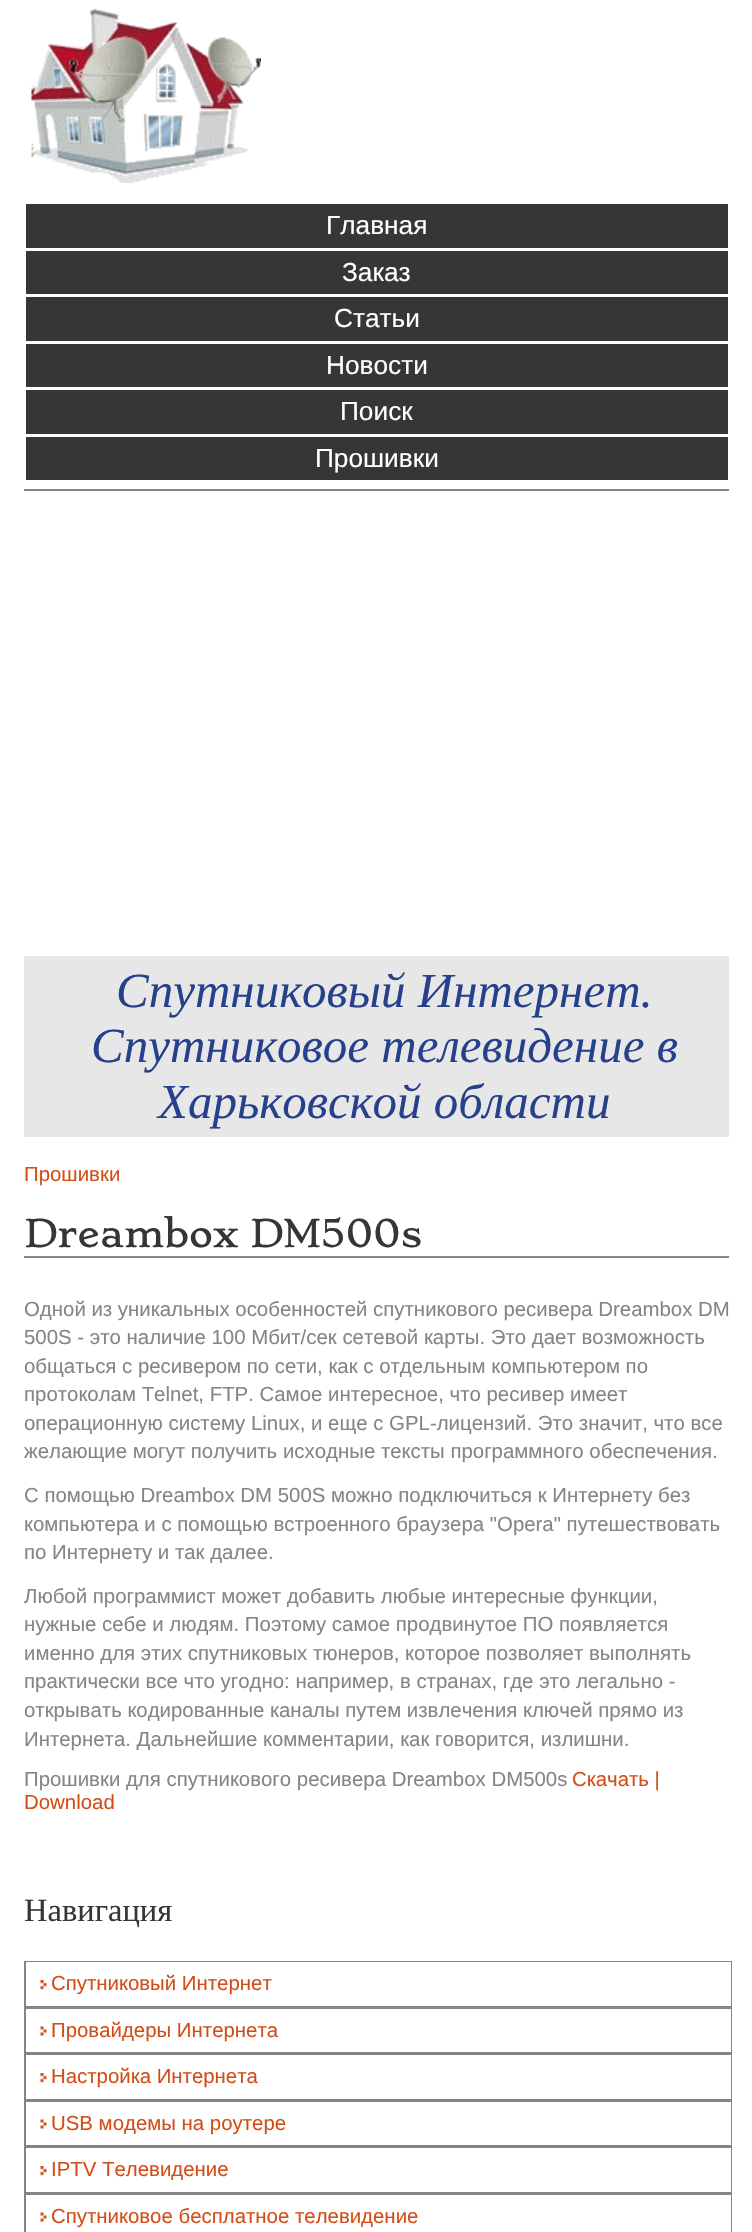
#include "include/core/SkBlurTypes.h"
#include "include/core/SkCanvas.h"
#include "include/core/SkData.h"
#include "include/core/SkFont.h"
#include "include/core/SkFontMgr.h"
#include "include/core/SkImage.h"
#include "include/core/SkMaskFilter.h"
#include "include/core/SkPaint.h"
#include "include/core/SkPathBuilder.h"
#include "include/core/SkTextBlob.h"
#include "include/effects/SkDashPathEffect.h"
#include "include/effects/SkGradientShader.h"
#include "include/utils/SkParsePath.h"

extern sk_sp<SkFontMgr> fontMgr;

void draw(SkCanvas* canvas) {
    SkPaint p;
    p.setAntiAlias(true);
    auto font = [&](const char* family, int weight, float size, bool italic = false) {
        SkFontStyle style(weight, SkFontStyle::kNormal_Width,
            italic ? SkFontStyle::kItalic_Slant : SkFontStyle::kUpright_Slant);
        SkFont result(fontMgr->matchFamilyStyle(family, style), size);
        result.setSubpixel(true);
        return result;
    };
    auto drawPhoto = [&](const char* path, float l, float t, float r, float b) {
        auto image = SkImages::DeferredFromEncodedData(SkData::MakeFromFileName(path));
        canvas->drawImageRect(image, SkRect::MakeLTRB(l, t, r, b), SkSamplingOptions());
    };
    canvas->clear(0xFFFFFFFF);
    drawPhoto("media/1.png", 31, 8, 261, 183);
    p.setColor(0xFF363636);
    canvas->drawRect(SkRect::MakeLTRB(26, 204, 728, 248), p);
    auto font1 = font("Liberation Sans", 400, 26.25f);
    p.setColor(0xFFFFFFFF);
    canvas->drawString("Главная", 326, 234, font1, p);
    p.setColor(0xFF363636);
    canvas->drawRect(SkRect::MakeLTRB(26, 251, 728, 294), p);
    p.setColor(0xFFFFFFFF);
    canvas->drawString("Заказ", 342, 281, font1, p);
    p.setColor(0xFF363636);
    canvas->drawRect(SkRect::MakeLTRB(26, 297, 728, 341), p);
    p.setColor(0xFFFFFFFF);
    canvas->drawString("Статьи", 334, 327, font1, p);
    p.setColor(0xFF363636);
    canvas->drawRect(SkRect::MakeLTRB(26, 344, 728, 387), p);
    p.setColor(0xFFFFFFFF);
    canvas->drawString("Новости", 326, 374, font1, p);
    p.setColor(0xFF363636);
    canvas->drawRect(SkRect::MakeLTRB(26, 390, 728, 434), p);
    p.setColor(0xFFFFFFFF);
    canvas->drawString("Поиск", 340, 420, font1, p);
    p.setColor(0xFF363636);
    canvas->drawRect(SkRect::MakeLTRB(26, 437, 728, 480), p);
    p.setColor(0xFFFFFFFF);
    canvas->drawString("Прошивки", 315, 467, font1, p);
    p.setColor(0xFF858585);
    canvas->drawRect(SkRect::MakeLTRB(24, 489, 729, 491), p);
    p.setColor(0xFFE7E7E7);
    canvas->drawRect(SkRect::MakeLTRB(24, 956, 729, 1137), p);
    auto font2 = font("Liberation Serif", 400, 49, true);
    p.setColor(0xFF27408B);
    {
        const struct { const char* s; float x, y; } items[] = {
            {"Спутниковый Интернет.", 116, 1007},
            {"Спутниковое телевидение в", 91, 1062},
            {"Харьковской области", 158, 1118},
        };
        for (auto [s, x, y] : items) {
            canvas->drawString(s, x, y, font2, p);
        }
    }
    auto font3 = font("Liberation Sans", 400, 20.4f);
    p.setColor(0xFFD34E16);
    canvas->drawString("Прошивки", 24, 1181, font3, p);
    p.setColor(0xFF858585);
    canvas->drawRect(SkRect::MakeLTRB(24, 1256, 729, 1258), p);
    auto font4 = font("Stoke", 400, 36.75f);
    p.setColor(0xFF363636);
    canvas->drawString("Dreambox DM500s", 24, 1247, font4, p);
    p.setColor(0xFF858585);
    {
        const struct { const char* s; float x, y; } items[] = {
            {"Одной из уникальных особенностей спутникового ресивера Dreambox DM", 24, 1316},
            {"500S - это наличие 100 Мбит/сек сетевой карты. Это дает возможность", 24, 1344},
            {"общаться с ресивером по сети, как с отдельным компьютером по", 24, 1373},
            {"протоколам Telnet, FTP. Cамое интересное, что ресивер имеет", 24, 1401},
            {"операционную систему Linux, и еще с GPL-лицензий. Это значит, что все", 24, 1430},
            {"желающие могут получить исходные тексты программного обеспечения.", 24, 1458},
            {"С помощью Dreambox DM 500S можно подключиться к Интернету без", 24, 1502},
            {"компьютера и с помощью встроенного браузера \"Opera\" путешествовать", 24, 1531},
            {"по Интернету и так далее.", 24, 1559},
            {"Любой программист может добавить любые интересные функции,", 24, 1603},
            {"нужные себе и людям. Поэтому самое продвинутое ПО появляется", 24, 1631},
            {"именно для этих спутниковых тюнеров, которое позволяет выполнять", 24, 1660},
            {"практически все что угодно: например, в странах, где это легально -", 24, 1688},
            {"открывать кодированные каналы путем извлечения ключей прямо из", 24, 1717},
            {"Интернета. Дальнейшие комментарии, как говорится, излишни.", 24, 1746},
            {"Прошивки для спутникового ресивера Dreambox DM500s", 24, 1786},
        };
        for (auto [s, x, y] : items) {
            canvas->drawString(s, x, y, font3, p);
        }
    }
    p.setColor(0xFFD34E16);
    canvas->drawString("Скачать |", 572, 1786, font3, p);
    canvas->drawString("Download", 24, 1809, font3, p);
    auto font5 = font("Liberation Serif", 400, 32.5f);
    p.setColor(0xFF363636);
    canvas->drawString("Навигация", 24, 1921, font5, p);
    p.setStyle(SkPaint::kStroke_Style);
    p.setStrokeWidth(2);
    p.setColor(0xFF858585);
    canvas->drawRect(SkRect::MakeLTRB(25, 1962, 731, 2006), p);
    p.setStyle(SkPaint::kFill_Style);
    p.setColor(0xFFFFFFFF);
    canvas->drawRect(SkRect::MakeLTRB(26, 1962, 731, 2006), p);
    drawPhoto("media/2.png", 40, 1980, 47, 1990);
    p.setColor(0xFFD34E16);
    canvas->drawString("Спутниковый Интернет", 51, 1990, font3, p);
    p.setStyle(SkPaint::kStroke_Style);
    p.setColor(0xFF858585);
    canvas->drawRect(SkRect::MakeLTRB(25, 2008, 731, 2053), p);
    p.setStyle(SkPaint::kFill_Style);
    p.setColor(0xFFFFFFFF);
    canvas->drawRect(SkRect::MakeLTRB(730, 2009, 731, 2052), p);
    drawPhoto("media/3.png", 40, 2026, 47, 2036);
    p.setColor(0xFFD34E16);
    canvas->drawString("Провайдеры Интернета", 51, 2037, font3, p);
    p.setStyle(SkPaint::kStroke_Style);
    p.setColor(0xFF858585);
    canvas->drawRect(SkRect::MakeLTRB(25, 2055, 731, 2099), p);
    p.setStyle(SkPaint::kFill_Style);
    p.setColor(0xFFFFFFFF);
    canvas->drawRect(SkRect::MakeLTRB(26, 2055, 731, 2099), p);
    drawPhoto("media/2.png", 40, 2073, 47, 2083);
    p.setColor(0xFFD34E16);
    canvas->drawString("Настройка Интернета", 51, 2083, font3, p);
    p.setStyle(SkPaint::kStroke_Style);
    p.setColor(0xFF858585);
    canvas->drawRect(SkRect::MakeLTRB(25, 2101, 731, 2146), p);
    p.setStyle(SkPaint::kFill_Style);
    p.setColor(0xFFFFFFFF);
    canvas->drawRect(SkRect::MakeLTRB(730, 2102, 731, 2145), p);
    drawPhoto("media/3.png", 40, 2119, 47, 2129);
    p.setColor(0xFFD34E16);
    canvas->drawString("USB модемы на роутере", 51, 2130, font3, p);
    p.setStyle(SkPaint::kStroke_Style);
    p.setColor(0xFF858585);
    canvas->drawRect(SkRect::MakeLTRB(25, 2148, 731, 2192), p);
    p.setStyle(SkPaint::kFill_Style);
    p.setColor(0xFFFFFFFF);
    canvas->drawRect(SkRect::MakeLTRB(26, 2148, 731, 2192), p);
    drawPhoto("media/2.png", 40, 2166, 47, 2176);
    p.setColor(0xFFD34E16);
    canvas->drawString("IPTV Телевидение", 51, 2176, font3, p);
    p.setStyle(SkPaint::kStroke_Style);
    p.setColor(0xFF858585);
    canvas->drawRect(SkRect::MakeLTRB(25, 2194, 731, 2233), p);
    p.setStyle(SkPaint::kFill_Style);
    p.setColor(0xFFFFFFFF);
    canvas->drawRect(SkRect::MakeLTRB(730, 2195, 731, 2232), p);
    drawPhoto("media/3.png", 40, 2212, 47, 2222);
    p.setColor(0xFFD34E16);
    canvas->drawString("Спутниковое бесплатное телевидение", 51, 2223, font3, p);
}
